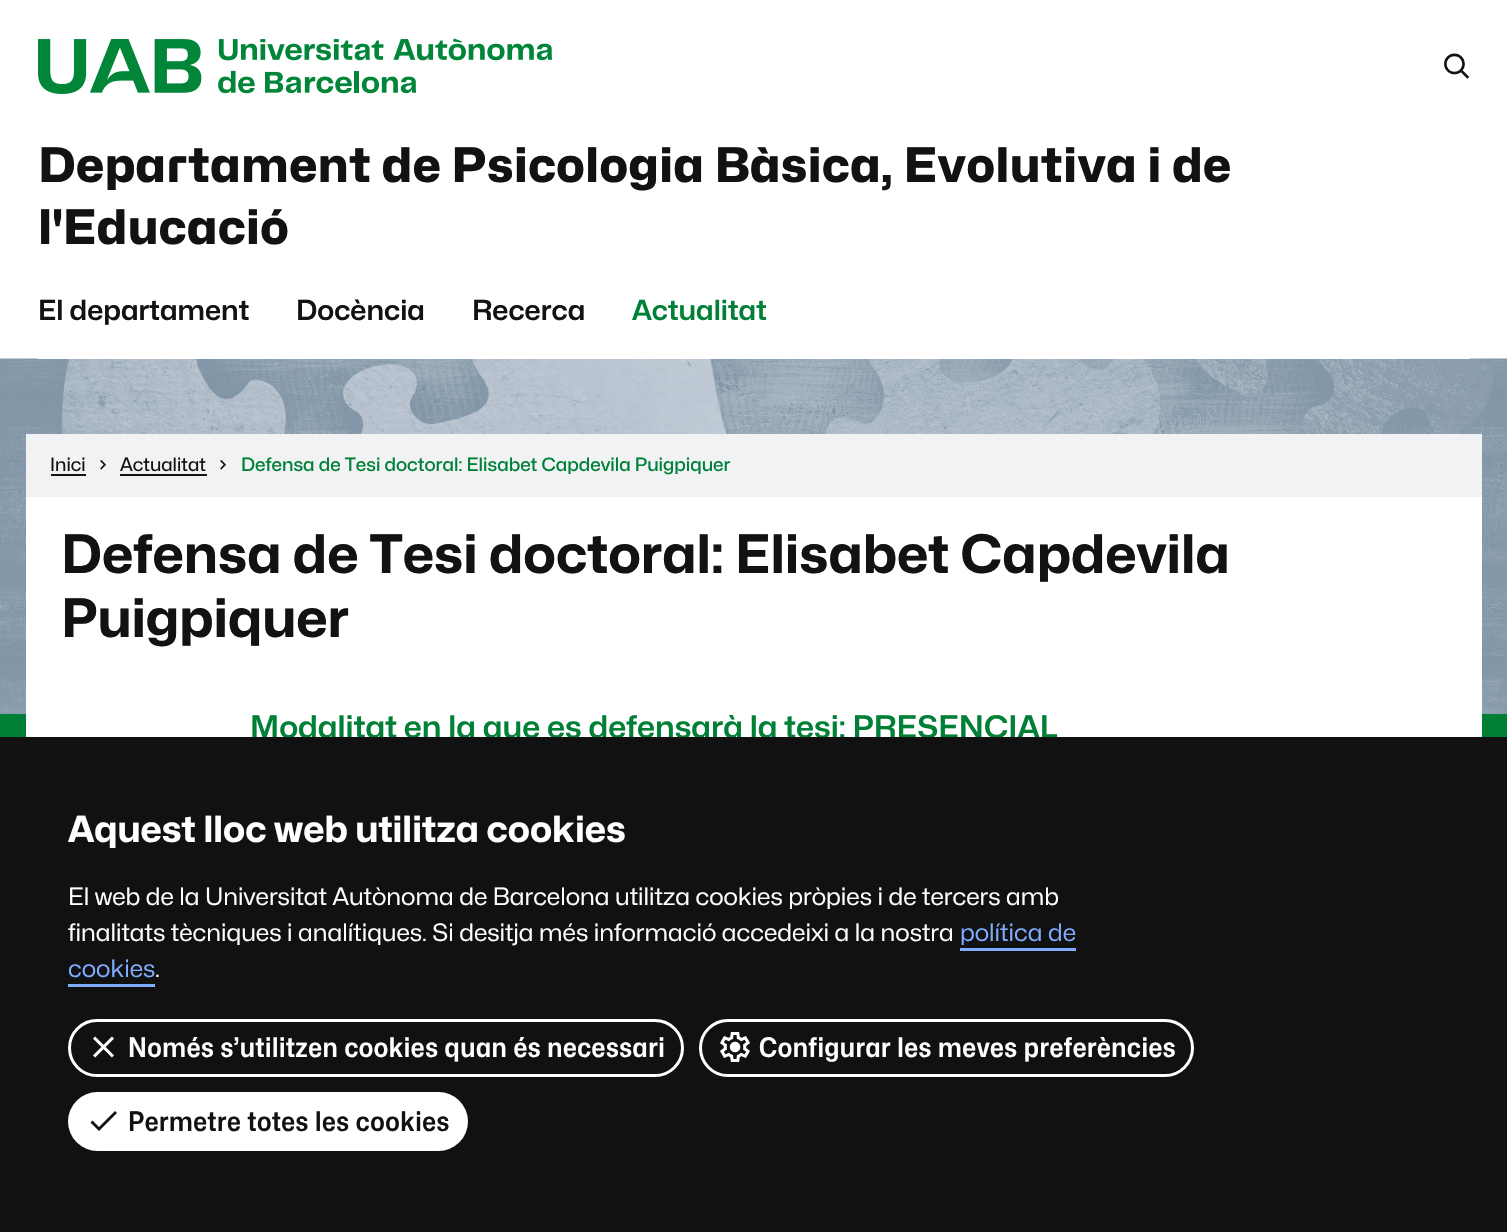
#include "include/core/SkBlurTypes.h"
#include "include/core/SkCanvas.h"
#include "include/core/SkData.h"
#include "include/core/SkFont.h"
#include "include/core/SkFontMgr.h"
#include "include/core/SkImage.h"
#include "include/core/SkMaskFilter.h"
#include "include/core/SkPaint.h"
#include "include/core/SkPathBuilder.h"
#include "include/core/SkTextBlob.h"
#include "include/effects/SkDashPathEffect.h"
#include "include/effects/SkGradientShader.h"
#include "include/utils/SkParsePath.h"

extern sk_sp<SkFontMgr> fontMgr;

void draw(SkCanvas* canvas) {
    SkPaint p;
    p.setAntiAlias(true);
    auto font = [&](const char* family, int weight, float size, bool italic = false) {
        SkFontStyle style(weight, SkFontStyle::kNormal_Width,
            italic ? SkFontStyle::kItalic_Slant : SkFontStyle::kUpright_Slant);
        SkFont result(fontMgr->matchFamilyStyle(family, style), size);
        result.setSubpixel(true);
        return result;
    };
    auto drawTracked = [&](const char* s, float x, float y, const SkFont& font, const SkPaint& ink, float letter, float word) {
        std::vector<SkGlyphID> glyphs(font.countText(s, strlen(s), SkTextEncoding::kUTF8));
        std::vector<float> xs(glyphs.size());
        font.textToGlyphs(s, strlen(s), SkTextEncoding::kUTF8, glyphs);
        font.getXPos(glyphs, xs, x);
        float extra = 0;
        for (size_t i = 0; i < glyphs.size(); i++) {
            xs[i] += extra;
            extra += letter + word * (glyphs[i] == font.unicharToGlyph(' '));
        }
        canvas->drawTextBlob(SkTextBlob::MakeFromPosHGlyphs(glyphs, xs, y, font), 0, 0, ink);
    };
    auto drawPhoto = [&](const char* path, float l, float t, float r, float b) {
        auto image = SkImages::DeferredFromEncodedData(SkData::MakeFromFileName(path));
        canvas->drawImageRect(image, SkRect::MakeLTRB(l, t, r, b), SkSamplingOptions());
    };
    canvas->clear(0xFFFFFFFF);
    drawPhoto("media/1.png", 38, 38, 552, 94);
    drawPhoto("media/2.png", 1444, 53, 1469, 79);
    auto font1 = font("Hubot Sans", 700, 47.7f);
    p.setColor(0xFF121212);
    canvas->drawString("Departament de Psicologia Bàsica, Evolutiva i de", 38, 182, font1, p);
    canvas->drawString("l'Educació", 38, 244, font1, p);
    drawPhoto("media/3.png", 0, 358, 1507, 714);
    p.setColor(0xFFFFFFFF);
    canvas->drawRect(SkRect::MakeLTRB(38, 358, 1470, 359), p);
    auto font2 = font("Mona Sans", 600, 27.75f);
    p.setColor(0xFF121212);
    {
        const struct { const char* s; float x, y; } items[] = {
            {"El departament", 38, 320},
            {"Docència", 296, 320},
            {"Recerca", 472, 320},
        };
        for (auto [s, x, y] : items) {
            canvas->drawString(s, x, y, font2, p);
        }
    }
    p.setColor(0xFF008037);
    canvas->drawString("Actualitat", 632, 320, font2, p);
    {
        const struct { float l, t, r, b; SkColor color; } items[] = {
            {0, 714, 1507, 737, 0xFF008037},
            {26, 497, 1482, 737, 0xFFFFFFFF},
            {26, 434, 1482, 497, 0xFFF1F2F4},
        };
        for (auto [l, t, r, b, color] : items) {
            p.setColor(color);
            canvas->drawRect(SkRect::MakeLTRB(l, t, r, b), p);
        }
    }
    auto font3 = font("Mona Sans", 400, 18.4f);
    p.setColor(0xFF121212);
    canvas->drawString("Inici", 50, 471, font3, p);
    canvas->drawRect(SkRect::MakeLTRB(51, 474, 86, 476), p);
    drawPhoto("media/4.png", 100, 460, 106, 470);
    canvas->drawString("Actualitat", 120, 471, font3, p);
    canvas->drawRect(SkRect::MakeLTRB(120, 474, 207, 476), p);
    drawPhoto("media/4.png", 220, 460, 226, 470);
    auto font4 = font("Mona Sans", 500, 18.4f);
    p.setColor(0xFF008037);
    canvas->drawString("Defensa de Tesi doctoral: Elisabet Capdevila Puigpiquer", 241, 471, font4, p);
    auto font5 = font("Mona Sans", 700, 53.1f);
    p.setColor(0xFF121212);
    canvas->drawString("Defensa de Tesi doctoral: Elisabet Capdevila", 61, 573, font5, p);
    canvas->drawString("Puigpiquer", 61, 637, font5, p);
    auto font6 = font("Mona Sans", 600, 31.1f);
    p.setColor(0xFF008037);
    canvas->drawString("Modalitat en la que es defensarà la tesi: PRESENCIAL", 250, 738, font6, p);
    p.setColor(0xFF111111);
    canvas->drawRect(SkRect::MakeLTRB(0, 737, 1507, 1232), p);
    auto font7 = font("Mona Sans", 700, 36);
    p.setColor(0xFFFFFFFF);
    canvas->drawString("Aquest lloc web utilitza cookies", 68, 842, font7, p);
    auto font8 = font("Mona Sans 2", 400, 24);
    canvas->drawString("El web de la Universitat Autònoma de Barcelona utilitza cookies pròpies i de tercers amb", 68, 905, font8, p);
    canvas->drawString("finalitats tècniques i analítiques. Si desitja més informació accedeixi a la nostra", 68, 941, font8, p);
    p.setColor(0xFF80ACFF);
    canvas->drawString("política de", 960, 941, font8, p);
    canvas->drawRect(SkRect::MakeLTRB(960, 948, 1076, 951), p);
    canvas->drawString("cookies", 68, 977, font8, p);
    canvas->drawRect(SkRect::MakeLTRB(68, 984, 155, 987), p);
    p.setColor(0xFFFFFFFF);
    canvas->drawString(".", 155, 977, font8, p);
    p.setStyle(SkPaint::kStroke_Style);
    p.setStrokeWidth(3);
    canvas->drawRoundRect(SkRect::MakeLTRB(69.5f, 1020.5f, 682.5f, 1075.5f), 27.5f, 27.5f, p);
    drawPhoto("media/5.png", 93, 1036, 114, 1058);
    auto font9 = font("Mona Sans 2", 600, 27);
    p.setStyle(SkPaint::kFill_Style);
    drawTracked("Només s’utilitzen cookies quan és necessari", 128, 1057, font9, p, 0.5f, 0);
    p.setStyle(SkPaint::kStroke_Style);
    canvas->drawRoundRect(SkRect::MakeLTRB(700.5f, 1020.5f, 1192.5f, 1075.5f), 27.5f, 27.5f, p);
    drawPhoto("media/6.png", 720, 1032, 750, 1062);
    p.setStyle(SkPaint::kFill_Style);
    drawTracked("Configurar les meves preferències", 759, 1057, font9, p, 0.5f, 0);
    canvas->drawRoundRect(SkRect::MakeLTRB(68, 1092, 468, 1151), 29.5f, 29.5f, p);
    p.setColor(0xFF111111);
    canvas->drawPath(SkPathBuilder().moveTo(99, 1127).lineTo(92.5f, 1120.5f).lineTo(90.5f, 1122.5f).lineTo(99, 1131).lineTo(117, 1113).lineTo(115, 1111).close().detach(), p);
    p.setColor(0xFF121212);
    drawTracked("Permetre totes les cookies", 128, 1131, font9, p, 0.5f, 0);
}
